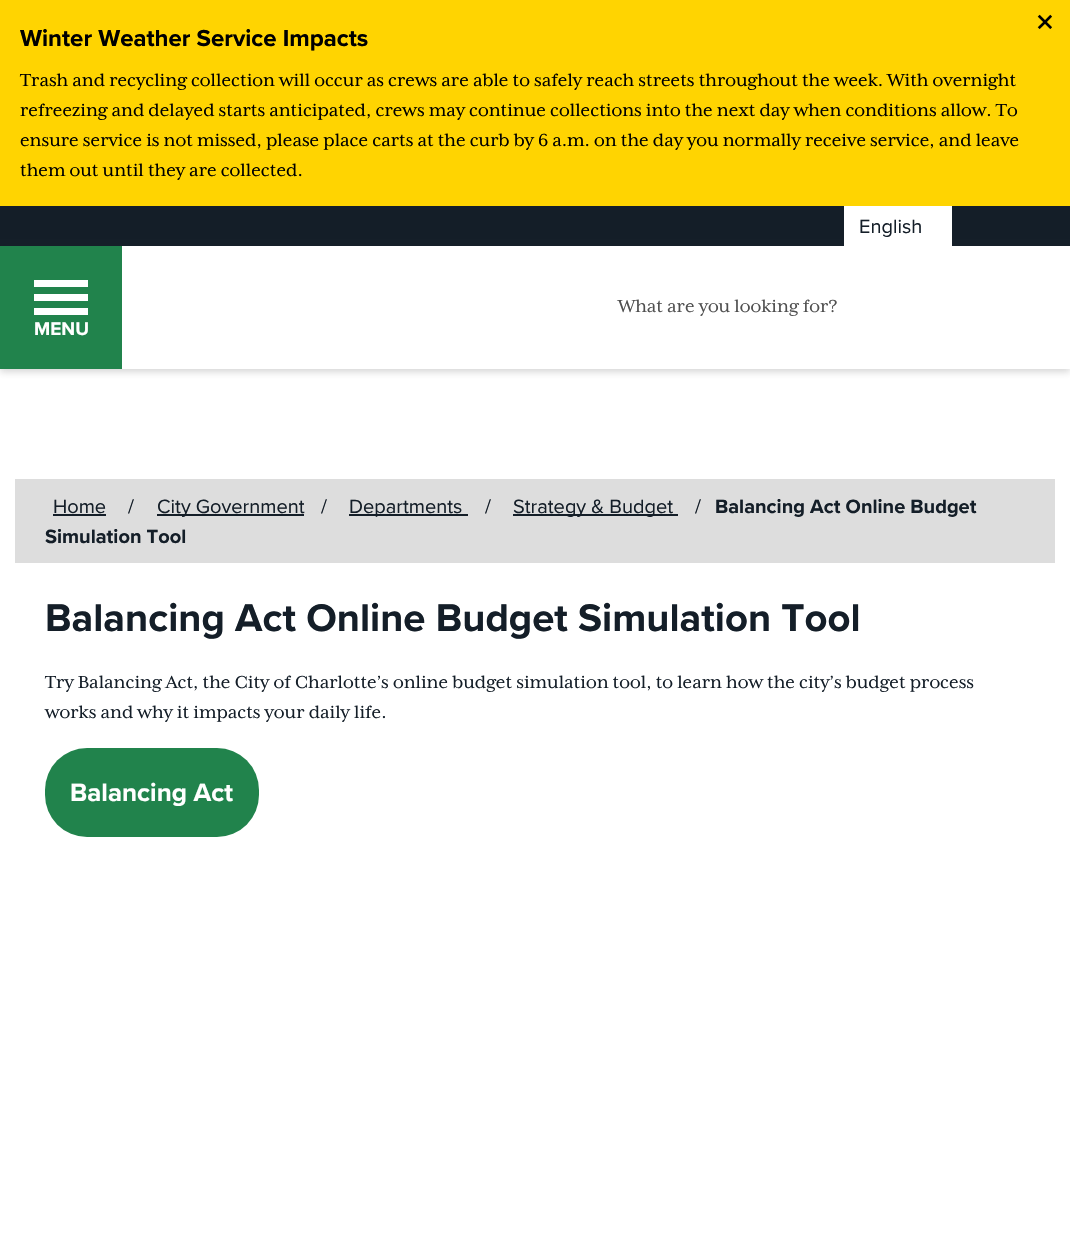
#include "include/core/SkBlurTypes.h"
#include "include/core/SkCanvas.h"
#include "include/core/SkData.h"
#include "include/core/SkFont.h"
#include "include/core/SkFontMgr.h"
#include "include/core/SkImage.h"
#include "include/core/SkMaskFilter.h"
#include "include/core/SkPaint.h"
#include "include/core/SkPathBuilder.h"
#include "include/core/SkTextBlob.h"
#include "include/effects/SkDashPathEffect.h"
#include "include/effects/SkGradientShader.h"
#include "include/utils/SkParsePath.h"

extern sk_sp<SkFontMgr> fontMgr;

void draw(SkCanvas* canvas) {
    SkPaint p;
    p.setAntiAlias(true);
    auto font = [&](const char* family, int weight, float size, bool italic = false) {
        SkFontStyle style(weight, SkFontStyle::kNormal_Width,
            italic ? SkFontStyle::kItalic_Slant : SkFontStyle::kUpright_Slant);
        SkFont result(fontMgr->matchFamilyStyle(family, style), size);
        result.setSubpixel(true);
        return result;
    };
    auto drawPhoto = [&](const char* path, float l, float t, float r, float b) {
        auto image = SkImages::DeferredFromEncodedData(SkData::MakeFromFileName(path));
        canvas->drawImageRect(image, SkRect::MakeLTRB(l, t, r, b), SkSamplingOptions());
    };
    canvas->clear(0xFFFFFFFF);
    p.setColor(0xFFFFD401);
    canvas->drawRect(SkRect::MakeLTRB(0, 0, 1070, 206), p);
    drawPhoto("media/1.png", 1037, 14, 1052, 29);
    auto font1 = font("Proxima Nova", 700, 24);
    p.setColor(0xFF000000);
    canvas->drawString("Winter Weather Service Impacts", 20, 46, font1, p);
    auto font2 = font("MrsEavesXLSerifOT", 400, 20);
    {
        const struct { const char* s; float x, y; } items[] = {
            {"Trash and recycling collection will occur as crews are able to safely reach streets throughout the week. With overnight", 20, 86},
            {"refreezing and delayed starts anticipated, crews may continue collections into the next day when conditions allow. To", 20, 116},
            {"ensure service is not missed, please place carts at the curb by 6 a.m. on the day you normally receive service, and leave", 20, 146},
            {"them out until they are collected.", 20, 176},
        };
        for (auto [s, x, y] : items) {
            canvas->drawString(s, x, y, font2, p);
        }
    }
    p.setColor(0xFF141E28);
    canvas->drawRect(SkRect::MakeLTRB(0, 206, 1070, 246), p);
    canvas->save();
    canvas->clipPath(SkPathBuilder(SkPathFillType::kEvenOdd).moveTo(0, 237).lineTo(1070, 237).lineTo(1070, 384).lineTo(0, 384).close().moveTo(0, 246).lineTo(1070, 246).lineTo(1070, 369).lineTo(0, 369).close().detach(), true);
    p.setColor(0x33333333);
    p.setMaskFilter(SkMaskFilter::MakeBlur(kNormal_SkBlurStyle, 3.5f));
    canvas->drawRect(SkRect::MakeLTRB(0, 249, 1070, 372), p);
    p.setMaskFilter(nullptr);
    canvas->restore();
    p.setColor(0xFFFFFFFF);
    canvas->drawRect(SkRect::MakeLTRB(844, 206, 952, 246), p);
    auto font3 = font("Proxima Nova", 400, 20);
    p.setColor(0xFF141E28);
    canvas->drawString("English", 859, 233, font3, p);
    p.setColor(0xFF505050);
    canvas->drawString("What are you looking for?", 618, 312, font2, p);
    {
        const struct { float l, t, r, b; SkColor color; } items[] = {
            {0, 246, 122, 369, 0xFF21834C},
            {34, 294, 88, 301, 0xFFFFFFFF},
            {34, 280, 88, 287, 0xFFFFFFFF},
            {34, 308, 88, 315, 0xFFFFFFFF},
        };
        for (auto [l, t, r, b, color] : items) {
            p.setColor(color);
            canvas->drawRect(SkRect::MakeLTRB(l, t, r, b), p);
        }
    }
    auto font4 = font("Proxima Nova", 700, 19);
    canvas->drawString("MENU", 34, 335, font4, p);
    p.setColor(0xFFDDDDDD);
    canvas->drawRect(SkRect::MakeLTRB(15, 479, 1055, 563), p);
    p.setColor(0xFF141E28);
    canvas->drawString("Home", 53, 513, font3, p);
    canvas->drawRect(SkRect::MakeLTRB(53, 514, 106, 516), p);
    canvas->drawString("/", 128, 513, font3, p);
    canvas->drawRect(SkRect::MakeLTRB(157, 514, 304, 516), p);
    canvas->drawString("City Government", 157, 513, font3, p);
    canvas->drawString("/", 321, 513, font3, p);
    canvas->drawRect(SkRect::MakeLTRB(349, 514, 468, 516), p);
    canvas->drawString("Departments", 349, 513, font3, p);
    canvas->drawString("/", 485, 513, font3, p);
    canvas->drawRect(SkRect::MakeLTRB(513, 514, 678, 516), p);
    canvas->drawString("Strategy & Budget", 513, 513, font3, p);
    canvas->drawString("/", 695, 513, font3, p);
    auto font5 = font("Proxima Nova", 700, 20);
    canvas->drawString("Balancing Act Online Budget", 715, 513, font5, p);
    canvas->drawString("Simulation Tool", 45, 543, font5, p);
    auto font6 = font("Proxima Nova", 700, 40);
    canvas->drawString("Balancing Act Online Budget Simulation Tool", 45, 631, font6, p);
    canvas->drawString("Try Balancing Act, the City of Charlotte’s online budget simulation tool, to learn how the city’s budget process", 45, 688, font2, p);
    canvas->drawString("works and why it impacts your daily life.", 45, 718, font2, p);
    p.setColor(0xFF21834C);
    canvas->drawRoundRect(SkRect::MakeLTRB(45, 748, 259, 837), 42, 42, p);
    auto font7 = font("Proxima Nova", 700, 26);
    p.setColor(0xFFFFFFFF);
    canvas->drawString("Balancing Act", 70, 801, font7, p);
}
